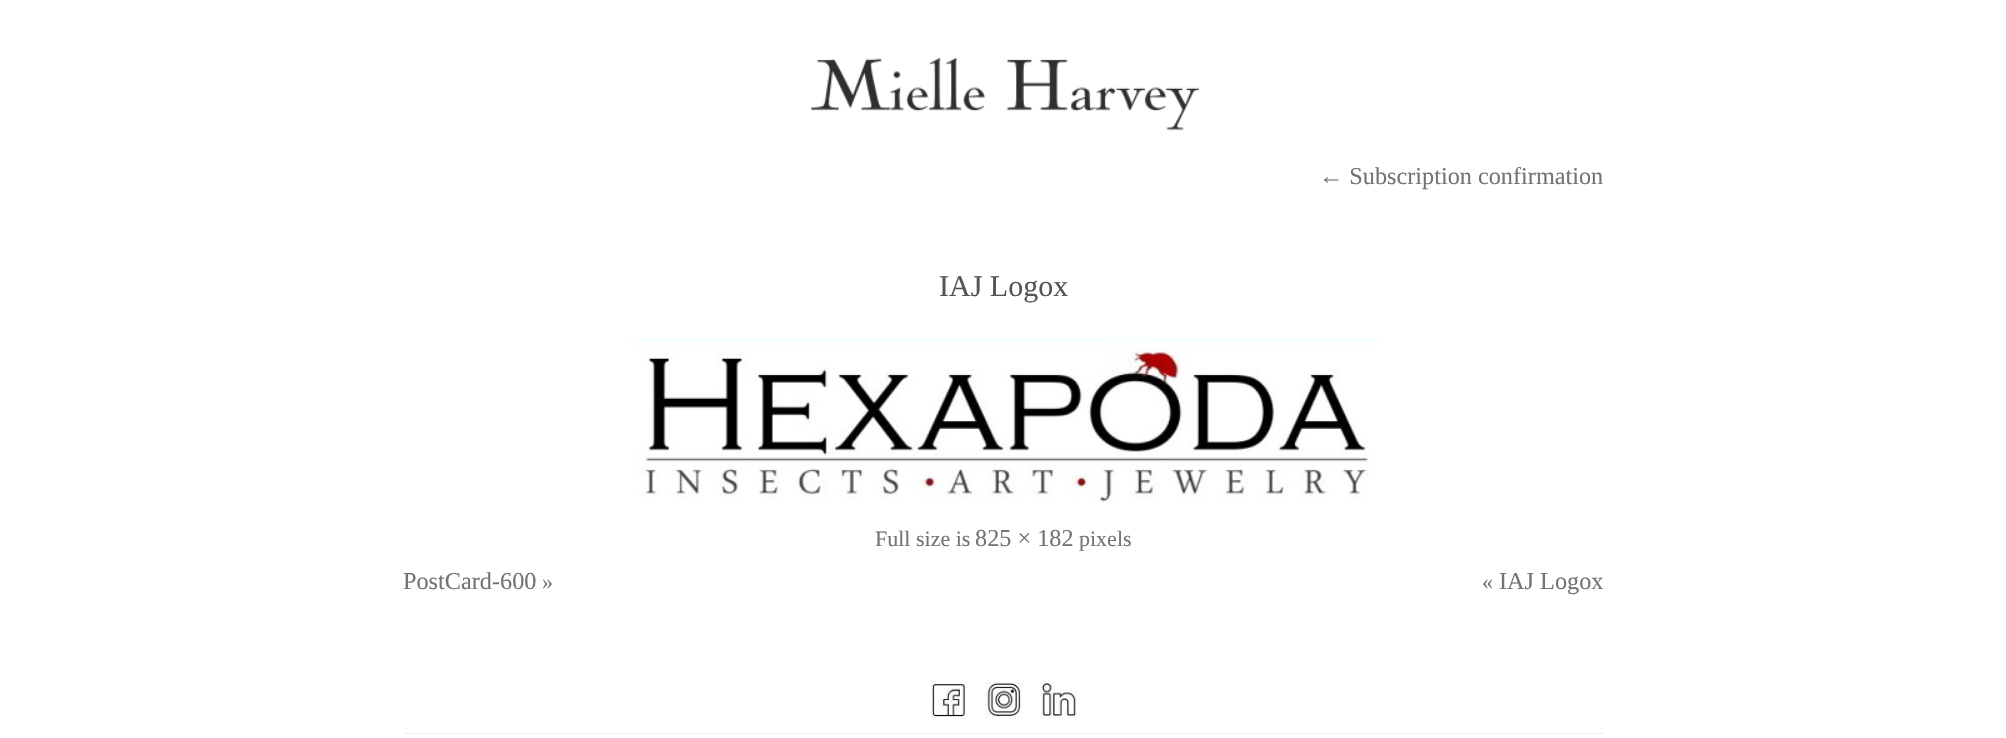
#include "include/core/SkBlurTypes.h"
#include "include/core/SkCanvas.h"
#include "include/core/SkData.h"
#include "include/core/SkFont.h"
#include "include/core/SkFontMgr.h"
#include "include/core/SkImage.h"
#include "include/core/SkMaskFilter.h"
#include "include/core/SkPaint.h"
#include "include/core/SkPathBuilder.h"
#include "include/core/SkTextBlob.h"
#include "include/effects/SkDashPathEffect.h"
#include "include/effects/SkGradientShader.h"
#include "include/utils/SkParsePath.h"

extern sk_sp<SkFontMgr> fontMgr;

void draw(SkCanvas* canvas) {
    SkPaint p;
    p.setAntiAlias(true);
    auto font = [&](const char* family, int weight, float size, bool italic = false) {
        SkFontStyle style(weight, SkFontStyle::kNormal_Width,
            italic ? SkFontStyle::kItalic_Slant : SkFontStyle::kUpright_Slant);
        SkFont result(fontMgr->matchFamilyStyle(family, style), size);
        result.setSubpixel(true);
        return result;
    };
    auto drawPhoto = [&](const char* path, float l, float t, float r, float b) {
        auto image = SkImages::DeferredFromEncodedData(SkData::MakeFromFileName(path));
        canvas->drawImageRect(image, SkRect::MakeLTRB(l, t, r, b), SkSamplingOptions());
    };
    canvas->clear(0xFFFFFFFF);
    drawPhoto("media/1.png", 811, 57, 1199, 131);
    auto font1 = font("Liberation Serif", 400, 24.25f);
    p.setColor(0xFF737373);
    canvas->drawString("← Subscription confirmation", 1319, 184, font1, p);
    auto font2 = font("Liberation Serif", 400, 30);
    p.setColor(0xFF545454);
    canvas->drawString("IAJ Logox", 939, 296, font2, p);
    drawPhoto("media/2.png", 629, 339, 1379, 503);
    auto font3 = font("Liberation Serif", 400, 22);
    p.setColor(0xFF737373);
    canvas->drawString("Full size is", 875, 546, font3, p);
    canvas->drawString("825 × 182", 975, 546, font1, p);
    canvas->drawString("pixels", 1079, 546, font3, p);
    canvas->drawString("PostCard-600", 403, 589, font1, p);
    canvas->drawString("»", 542, 589, font3, p);
    canvas->drawString("«", 1482, 589, font3, p);
    canvas->drawString("IAJ Logox", 1499, 589, font1, p);
    drawPhoto("media/3.png", 930, 681, 968, 719);
    drawPhoto("media/4.png", 985, 681, 1023, 719);
    drawPhoto("media/5.png", 1040, 681, 1078, 719);
    p.setColor(0xFFEBEDEF);
    canvas->drawRect(SkRect::MakeLTRB(404, 733, 1604, 734), p);
}
